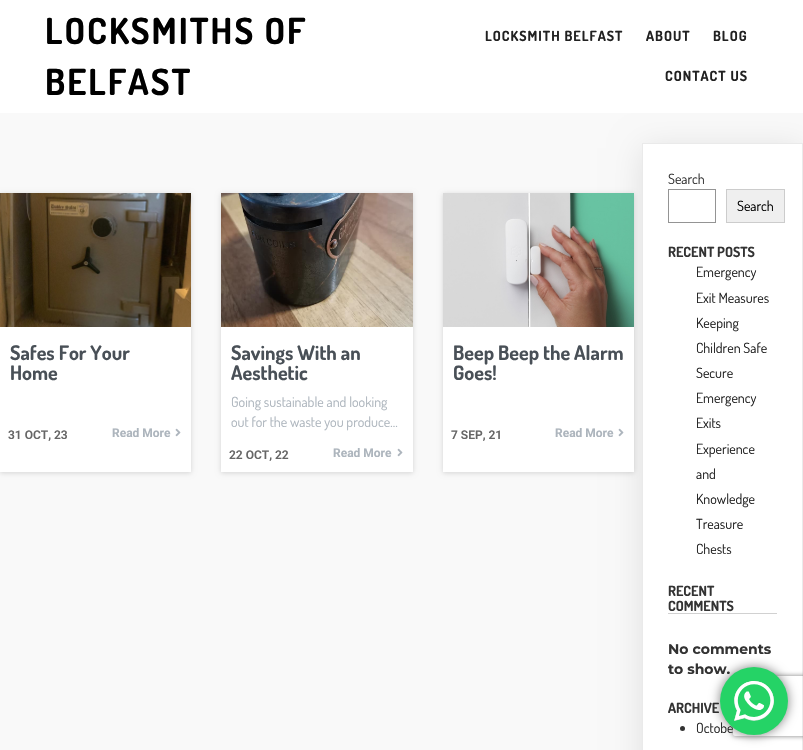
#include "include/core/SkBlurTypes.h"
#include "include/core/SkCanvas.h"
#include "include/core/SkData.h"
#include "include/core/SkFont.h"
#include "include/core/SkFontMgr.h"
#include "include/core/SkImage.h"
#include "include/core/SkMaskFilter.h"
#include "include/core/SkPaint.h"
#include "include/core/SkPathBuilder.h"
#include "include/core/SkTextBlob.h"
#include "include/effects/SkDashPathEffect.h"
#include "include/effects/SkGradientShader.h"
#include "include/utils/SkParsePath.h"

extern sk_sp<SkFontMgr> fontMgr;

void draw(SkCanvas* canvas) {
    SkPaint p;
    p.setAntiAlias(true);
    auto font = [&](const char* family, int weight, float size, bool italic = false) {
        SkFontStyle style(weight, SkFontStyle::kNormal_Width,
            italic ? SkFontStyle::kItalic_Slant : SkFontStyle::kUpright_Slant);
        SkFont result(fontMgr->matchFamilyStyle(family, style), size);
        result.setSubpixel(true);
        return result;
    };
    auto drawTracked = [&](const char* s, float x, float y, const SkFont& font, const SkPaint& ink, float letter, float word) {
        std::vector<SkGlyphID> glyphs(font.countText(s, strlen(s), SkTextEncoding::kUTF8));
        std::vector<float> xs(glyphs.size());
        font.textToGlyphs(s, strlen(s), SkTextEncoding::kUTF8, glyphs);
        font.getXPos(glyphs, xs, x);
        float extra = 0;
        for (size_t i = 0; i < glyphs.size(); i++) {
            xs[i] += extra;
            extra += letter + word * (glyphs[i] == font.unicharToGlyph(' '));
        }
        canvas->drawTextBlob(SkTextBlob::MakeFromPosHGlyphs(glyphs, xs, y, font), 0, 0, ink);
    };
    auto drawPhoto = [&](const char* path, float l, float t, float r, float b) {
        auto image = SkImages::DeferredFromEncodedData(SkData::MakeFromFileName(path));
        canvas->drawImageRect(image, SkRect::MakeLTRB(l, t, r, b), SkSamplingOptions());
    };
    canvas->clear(0xFFF9F9F9);
    p.setColor(0x1A000000);
    p.setMaskFilter(SkMaskFilter::MakeBlur(kNormal_SkBlurStyle, 15));
    canvas->drawRect(SkRect::MakeLTRB(642, 148, 803, 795), p);
    p.setMaskFilter(nullptr);
    p.setColor(0xFFFFFFFF);
    canvas->drawRect(SkRect::MakeLTRB(0, 0, 803, 113), p);
    auto font1 = font("Dosis", 700, 36);
    p.setColor(0xFF000000);
    drawTracked("LOCKSMITHS OF", 45, 44, font1, p, 2, 0);
    drawTracked("BELFAST", 45, 95, font1, p, 2, 0);
    auto font2 = font("Dosis", 700, 14);
    p.setColor(0xFF212121);
    {
        const struct { const char* s; float x, y; } items[] = {
            {"LOCKSMITH BELFAST", 485, 41},
            {"ABOUT", 646, 41},
            {"BLOG", 713, 41},
            {"CONTACT US", 665, 81},
        };
        for (auto [s, x, y] : items) {
            drawTracked(s, x, y, font2, p, 1, 0);
        }
    }
    p.setColor(0x26000000);
    p.setMaskFilter(SkMaskFilter::MakeBlur(kNormal_SkBlurStyle, 2.5f));
    canvas->drawRect(SkRect::MakeLTRB(0, 194, 191, 473), p);
    p.setMaskFilter(nullptr);
    p.setColor(0xFFFFFFFF);
    canvas->drawRect(SkRect::MakeLTRB(0, 327, 191, 472), p);
    drawPhoto("media/1.png", 0, 193, 191, 327);
    auto font3 = font("Dosis", 700, 20);
    p.setColor(0xFF495057);
    canvas->drawString("Safes For Your", 10, 360, font3, p);
    canvas->drawString("Home", 10, 380, font3, p);
    auto font4 = font("Roboto", 600, 12);
    p.setColor(0xFF666666);
    canvas->drawString("31 OCT, 23", 8, 439, font4, p);
    auto font5 = font("Roboto", 700, 12);
    p.setColor(0xFFADB5BD);
    canvas->drawString("Read More", 112, 437, font5, p);
    drawPhoto("media/2.png", 175, 428, 181, 437);
    p.setColor(0x26000000);
    p.setMaskFilter(SkMaskFilter::MakeBlur(kNormal_SkBlurStyle, 2.5f));
    canvas->drawRect(SkRect::MakeLTRB(221, 194, 413, 473), p);
    p.setMaskFilter(nullptr);
    p.setColor(0xFFFFFFFF);
    canvas->drawRect(SkRect::MakeLTRB(221, 327, 413, 472), p);
    drawPhoto("media/3.png", 221, 193, 413, 327);
    p.setColor(0xFF495057);
    canvas->drawString("Savings With an", 231, 360, font3, p);
    canvas->drawString("Aesthetic", 231, 380, font3, p);
    auto font6 = font("Dosis", 400, 14);
    p.setColor(0xFFADB5BD);
    canvas->drawString("Going sustainable and looking", 231, 407, font6, p);
    canvas->drawString("out for the waste you produce…", 231, 427, font6, p);
    p.setColor(0xFF666666);
    canvas->drawString("22 OCT, 22", 229, 459, font4, p);
    p.setColor(0xFFADB5BD);
    canvas->drawString("Read More", 333, 457, font5, p);
    drawPhoto("media/2.png", 397, 448, 403, 457);
    p.setColor(0xFFFFFFFF);
    canvas->drawRect(SkRect::MakeLTRB(642.5f, 143.5f, 802.5f, 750.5f), p);
    p.setStyle(SkPaint::kStroke_Style);
    p.setStrokeWidth(1);
    p.setColor(0xFFEAEAEA);
    canvas->drawRect(SkRect::MakeLTRB(642.5f, 143.5f, 802.5f, 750.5f), p);
    p.setStyle(SkPaint::kFill_Style);
    p.setColor(0x26000000);
    p.setMaskFilter(SkMaskFilter::MakeBlur(kNormal_SkBlurStyle, 2.5f));
    canvas->drawRect(SkRect::MakeLTRB(443, 194, 634, 473), p);
    p.setMaskFilter(nullptr);
    p.setColor(0xFFFFFFFF);
    canvas->drawRect(SkRect::MakeLTRB(443, 327, 634, 472), p);
    drawPhoto("media/4.png", 443, 193, 634, 327);
    p.setColor(0xFF495057);
    canvas->drawString("Beep Beep the Alarm", 453, 360, font3, p);
    canvas->drawString("Goes!", 453, 380, font3, p);
    p.setColor(0xFF666666);
    canvas->drawString("7 SEP, 21", 451, 439, font4, p);
    p.setColor(0xFFADB5BD);
    canvas->drawString("Read More", 555, 437, font5, p);
    drawPhoto("media/2.png", 618, 428, 624, 437);
    p.setColor(0xFF333333);
    canvas->drawString("Search", 668, 184, font6, p);
    p.setStyle(SkPaint::kStroke_Style);
    p.setColor(0xFF949494);
    canvas->drawRect(SkRect::MakeLTRB(668.5f, 189.5f, 715.5f, 222.5f), p);
    p.setStyle(SkPaint::kFill_Style);
    p.setColor(0xFFEFEFEF);
    canvas->drawRect(SkRect::MakeLTRB(726.5f, 189.5f, 784.5f, 222.5f), p);
    p.setStyle(SkPaint::kStroke_Style);
    p.setColor(0xFFCCCCCC);
    canvas->drawRect(SkRect::MakeLTRB(726.5f, 189.5f, 784.5f, 222.5f), p);
    p.setStyle(SkPaint::kFill_Style);
    p.setColor(0xFF000000);
    canvas->drawString("Search", 737, 211, font6, p);
    p.setColor(0xFF333333);
    canvas->drawString("RECENT POSTS", 668, 257, font2, p);
    p.setColor(0xFF212121);
    {
        const struct { const char* s; float x, y; } items[] = {
            {"Emergency", 696, 277},
            {"Exit Measures", 696, 303},
            {"Keeping", 696, 328},
            {"Children Safe", 696, 353},
            {"Secure", 696, 378},
            {"Emergency", 696, 403},
            {"Exits", 696, 428},
            {"Experience", 696, 454},
            {"and", 696, 479},
            {"Knowledge", 696, 504},
            {"Treasure", 696, 529},
            {"Chests", 696, 554},
        };
        for (auto [s, x, y] : items) {
            canvas->drawString(s, x, y, font6, p);
        }
    }
    p.setColor(0xFF333333);
    canvas->drawString("RECENT", 668, 596, font2, p);
    canvas->drawString("COMMENTS", 668, 611, font2, p);
    p.setColor(0xFFD1D1D1);
    canvas->drawRect(SkRect::MakeLTRB(668, 613, 777, 614), p);
    auto font7 = font("Montserrat", 700, 14);
    p.setColor(0xFF333333);
    canvas->drawString("No comments", 668, 654, font7, p);
    canvas->drawString("to show.", 668, 674, font7, p);
    canvas->drawString("ARCHIVE", 668, 713, font2, p);
    canvas->drawCircle(682.5f, 728.5f, 2.5f, p);
    p.setColor(0xFF212121);
    canvas->drawString("Octobe", 696, 733, font6, p);
    p.setColor(0x80000000);
    p.setMaskFilter(SkMaskFilter::MakeBlur(kNormal_SkBlurStyle, 5.5f));
    canvas->drawRoundRect(SkRect::MakeLTRB(720, 667, 788, 735), 34, 34, p);
    p.setMaskFilter(nullptr);
    canvas->save();
    canvas->clipPath(SkPathBuilder(SkPathFillType::kEvenOdd).moveTo(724, 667).lineTo(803, 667).lineTo(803, 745).lineTo(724, 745).close().moveTo(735, 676).lineTo(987, 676).cubicTo(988, 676, 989, 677, 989, 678).lineTo(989, 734).cubicTo(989, 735, 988, 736, 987, 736).lineTo(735, 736).cubicTo(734, 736, 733, 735, 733, 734).lineTo(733, 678).cubicTo(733, 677, 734, 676, 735, 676).close().detach(), true);
    p.setColor(0xFF808080);
    p.setMaskFilter(SkMaskFilter::MakeBlur(kNormal_SkBlurStyle, 2.5f));
    canvas->drawRoundRect(SkRect::MakeLTRB(733, 676, 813, 736), 2, 2, p);
    p.setMaskFilter(nullptr);
    canvas->restore();
    p.setColor(0xFF25D366);
    canvas->drawCircle(754, 701, 34, p);
    drawPhoto("media/5.png", 734, 681, 774, 721);
}
